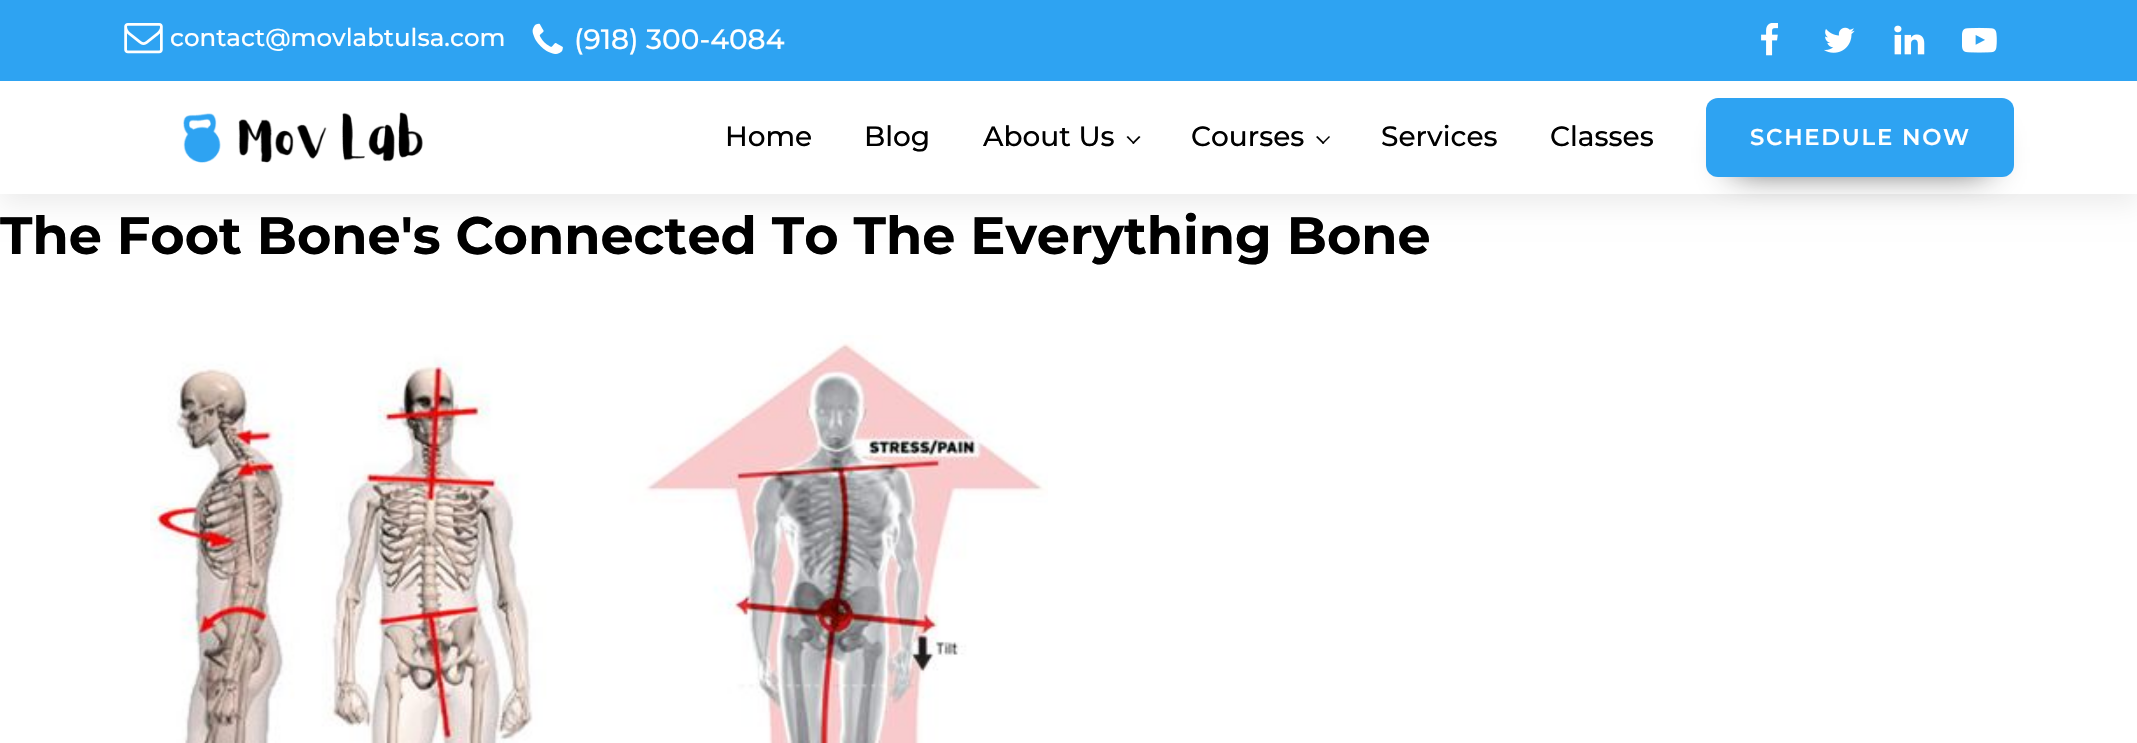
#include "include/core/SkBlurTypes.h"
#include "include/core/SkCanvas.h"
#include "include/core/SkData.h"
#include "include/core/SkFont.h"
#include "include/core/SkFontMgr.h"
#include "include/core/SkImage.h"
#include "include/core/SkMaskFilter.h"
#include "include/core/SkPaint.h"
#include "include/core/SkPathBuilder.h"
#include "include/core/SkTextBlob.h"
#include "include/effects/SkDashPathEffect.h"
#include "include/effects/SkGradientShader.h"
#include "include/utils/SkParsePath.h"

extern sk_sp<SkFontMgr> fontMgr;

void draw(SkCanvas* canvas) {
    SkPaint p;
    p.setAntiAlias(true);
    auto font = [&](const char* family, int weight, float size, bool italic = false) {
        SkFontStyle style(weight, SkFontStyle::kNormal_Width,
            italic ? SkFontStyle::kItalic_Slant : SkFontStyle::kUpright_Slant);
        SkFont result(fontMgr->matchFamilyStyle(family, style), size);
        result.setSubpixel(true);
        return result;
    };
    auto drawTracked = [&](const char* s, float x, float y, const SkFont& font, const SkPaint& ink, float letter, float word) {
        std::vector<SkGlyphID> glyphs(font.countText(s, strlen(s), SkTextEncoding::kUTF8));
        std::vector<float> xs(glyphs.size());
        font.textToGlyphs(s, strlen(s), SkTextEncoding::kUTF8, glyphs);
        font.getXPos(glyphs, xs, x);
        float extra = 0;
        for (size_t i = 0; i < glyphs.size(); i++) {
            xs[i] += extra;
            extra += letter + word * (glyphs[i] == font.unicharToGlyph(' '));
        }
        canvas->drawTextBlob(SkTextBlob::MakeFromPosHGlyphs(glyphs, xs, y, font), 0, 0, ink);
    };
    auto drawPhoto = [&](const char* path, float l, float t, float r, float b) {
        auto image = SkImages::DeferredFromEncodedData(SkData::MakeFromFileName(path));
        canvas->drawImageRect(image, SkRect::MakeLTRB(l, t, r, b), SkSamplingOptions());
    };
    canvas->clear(0xFFFFFFFF);
    p.setColor(0x14000000);
    p.setMaskFilter(SkMaskFilter::MakeBlur(kNormal_SkBlurStyle, 13));
    canvas->drawRect(SkRect::MakeLTRB(0, 9, 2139, 203), p);
    p.setMaskFilter(nullptr);
    p.setColor(0xFF2EA3F2);
    canvas->drawRect(SkRect::MakeLTRB(0, 0, 2137, 81), p);
    drawPhoto("media/1.png", 124, 23, 163, 54);
    auto font1 = font("Montserrat", 500, 24.5f);
    p.setColor(0xFFFFFFFF);
    canvas->drawString("contact@movlabtulsa.com", 170, 46, font1, p);
    drawPhoto("media/2.png", 532, 23, 563, 54);
    auto font2 = font("Montserrat", 500, 28);
    canvas->drawString("(918) 300-4084", 574, 49, font2, p);
    drawPhoto("media/3.png", 1761, 23, 1778, 56);
    drawPhoto("media/4.png", 1824, 27, 1855, 53);
    drawPhoto("media/5.png", 1894, 25, 1925, 55);
    drawPhoto("media/6.png", 1962, 27, 1997, 53);
    canvas->drawRect(SkRect::MakeLTRB(0, 81, 2137, 194), p);
    drawPhoto("media/7.png", 183, 112, 423, 163);
    p.setColor(0xFF000000);
    {
        const struct { const char* s; float x, y; } items[] = {
            {"Home", 725, 146},
            {"Blog", 864, 146},
            {"About Us", 983, 146},
        };
        for (auto [s, x, y] : items) {
            canvas->drawString(s, x, y, font2, p);
        }
    }
    canvas->drawPath(SkPathBuilder().moveTo(1140.5f, 137).lineTo(1133.5f, 144).lineTo(1132, 143).lineTo(1139, 136).close().detach(), p);
    canvas->drawPath(SkPathBuilder().moveTo(1134.5f, 143).lineTo(1133.5f, 144).lineTo(1126.5f, 137).lineTo(1128, 136).close().detach(), p);
    canvas->drawString("Courses", 1191, 146, font2, p);
    canvas->drawPath(SkPathBuilder().moveTo(1330, 137).lineTo(1323, 144).lineTo(1322, 143).lineTo(1329, 136).close().detach(), p);
    canvas->drawPath(SkPathBuilder().moveTo(1324.5f, 143).lineTo(1323, 144).lineTo(1316, 137).lineTo(1317.5f, 136).close().detach(), p);
    canvas->drawString("Services", 1381, 146, font2, p);
    canvas->drawString("Classes", 1550, 146, font2, p);
    p.setColor(0xFF222222);
    p.setMaskFilter(SkMaskFilter::MakeBlur(kNormal_SkBlurStyle, 17.5f));
    canvas->drawRect(SkRect::MakeLTRB(1733, 142, 1988, 168), p);
    p.setMaskFilter(nullptr);
    p.setColor(0xFF2EA3F2);
    canvas->drawRoundRect(SkRect::MakeLTRB(1706, 98, 2014, 177), 12, 12, p);
    auto font3 = font("Montserrat", 600, 22.75f);
    p.setColor(0xFFFFFFFF);
    drawTracked("SCHEDULE NOW", 1750, 145, font3, p, 1.75f, 0);
    auto font4 = font("Montserrat", 700, 52.5f);
    p.setColor(0xFF000000);
    canvas->drawString("The Foot Bone's Connected To The Everything Bone", 0, 254, font4, p);
    drawPhoto("media/8.png", 150, 335, 1048, 743);
}
